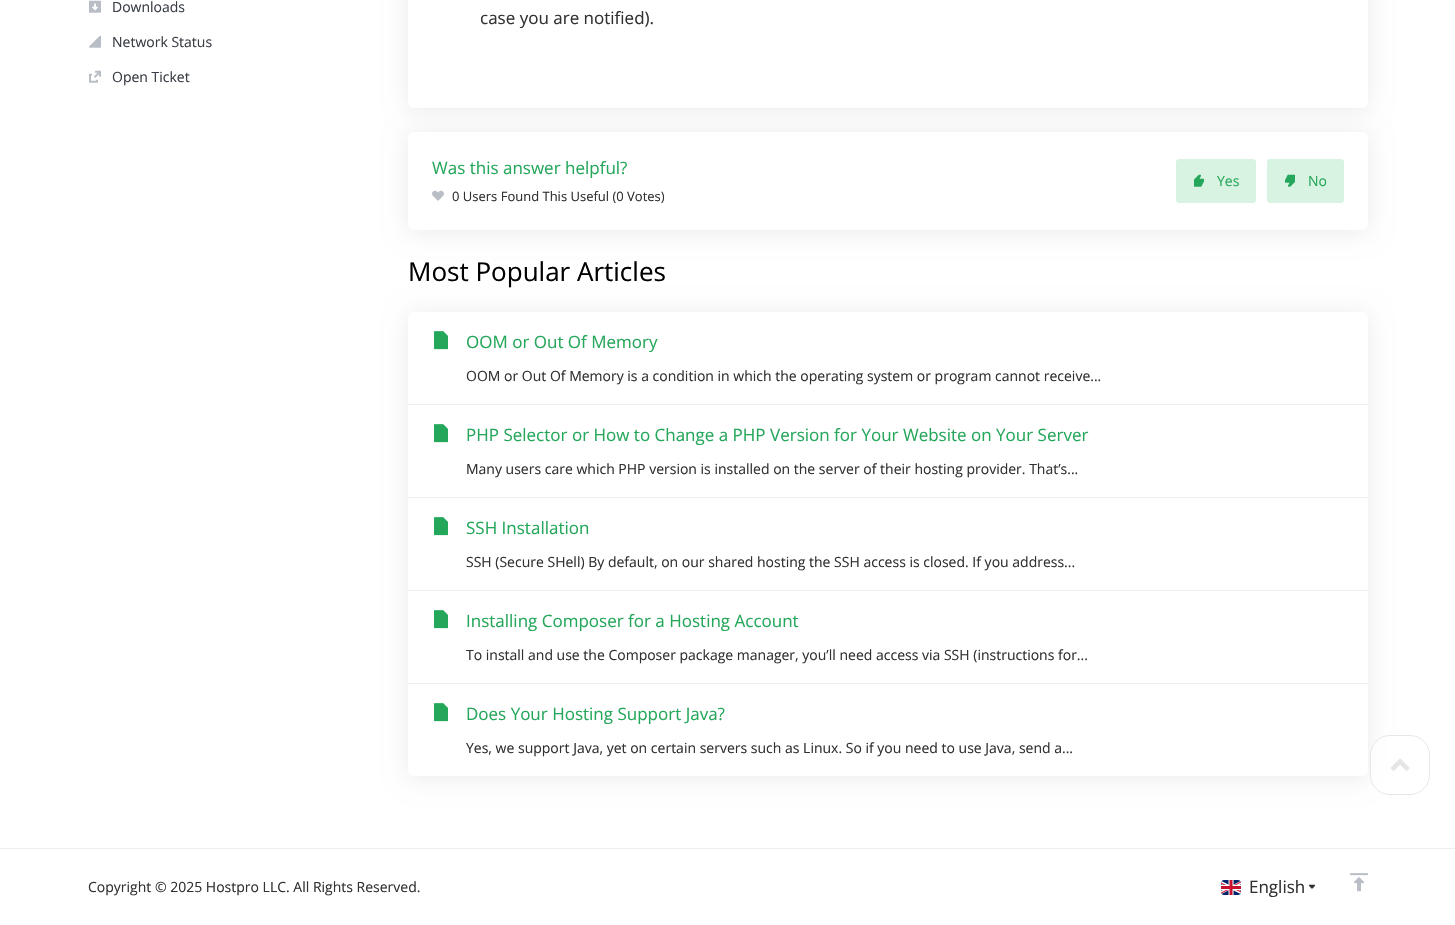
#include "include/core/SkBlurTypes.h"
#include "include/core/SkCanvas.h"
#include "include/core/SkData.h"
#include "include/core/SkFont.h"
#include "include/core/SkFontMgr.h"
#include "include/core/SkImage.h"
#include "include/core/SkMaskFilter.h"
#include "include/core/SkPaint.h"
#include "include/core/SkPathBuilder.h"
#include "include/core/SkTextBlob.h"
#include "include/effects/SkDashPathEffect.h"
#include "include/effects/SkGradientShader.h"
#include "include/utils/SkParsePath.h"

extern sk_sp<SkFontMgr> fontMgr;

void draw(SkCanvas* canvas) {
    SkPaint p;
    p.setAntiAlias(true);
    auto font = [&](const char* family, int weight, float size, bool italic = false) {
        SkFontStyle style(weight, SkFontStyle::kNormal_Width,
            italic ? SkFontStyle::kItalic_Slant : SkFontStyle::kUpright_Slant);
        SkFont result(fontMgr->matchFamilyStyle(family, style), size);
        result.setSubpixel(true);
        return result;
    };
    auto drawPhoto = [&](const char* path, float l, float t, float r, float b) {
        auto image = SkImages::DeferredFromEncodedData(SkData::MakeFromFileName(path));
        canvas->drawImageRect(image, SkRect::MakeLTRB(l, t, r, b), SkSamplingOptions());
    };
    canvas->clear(0xFFFFFFFF);
    drawPhoto("media/1.png", 89, 0, 101, 13);
    auto font1 = font("Open Sans", 400, 14);
    p.setColor(0xFF393D45);
    canvas->drawString("Downloads", 112, 12, font1, p);
    drawPhoto("media/2.png", 89, 35, 101, 48);
    canvas->drawString("Network Status", 112, 47, font1, p);
    drawPhoto("media/3.png", 89, 70, 101, 83);
    canvas->drawString("Open Ticket", 112, 82, font1, p);
    p.setColor(0x14000000);
    p.setMaskFilter(SkMaskFilter::MakeBlur(kNormal_SkBlurStyle, 12));
    canvas->drawRoundRect(SkRect::MakeLTRB(408, -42, 1368, 110), 6, 6, p);
    p.setMaskFilter(nullptr);
    p.setColor(0xFFFFFFFF);
    canvas->drawRoundRect(SkRect::MakeLTRB(408, -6, 1368, 108), 6, 6, p);
    auto font2 = font("Open Sans", 400, 17);
    p.setColor(0xFF313131);
    canvas->drawString("case you are notified).", 480, 24, font2, p);
    p.setColor(0x14000000);
    p.setMaskFilter(SkMaskFilter::MakeBlur(kNormal_SkBlurStyle, 12));
    canvas->drawRoundRect(SkRect::MakeLTRB(408, 134, 1368, 232), 6, 6, p);
    p.setMaskFilter(nullptr);
    p.setColor(0xFFFFFFFF);
    canvas->drawRoundRect(SkRect::MakeLTRB(408, 132, 1368, 230), 6, 6, p);
    p.setColor(0xFF25A75B);
    canvas->drawString("Was this answer helpful?", 432, 174, font2, p);
    drawPhoto("media/4.png", 432, 190, 444, 201);
    auto font3 = font("Open Sans", 400, 13);
    p.setColor(0xFF313131);
    canvas->drawString("0 Users Found This Useful (0 Votes)", 452, 201, font3, p);
    p.setColor(0xFFD8F3E1);
    canvas->drawRoundRect(SkRect::MakeLTRB(1176.5f, 159.5f, 1255.5f, 202.5f), 2.5f, 2.5f, p);
    p.setStyle(SkPaint::kStroke_Style);
    p.setStrokeWidth(1);
    canvas->drawRoundRect(SkRect::MakeLTRB(1176.5f, 159.5f, 1255.5f, 202.5f), 2.5f, 2.5f, p);
    drawPhoto("media/5.png", 1194, 174, 1204, 187);
    p.setStyle(SkPaint::kFill_Style);
    p.setColor(0xFF25A75B);
    canvas->drawString("Yes", 1217, 186, font1, p);
    p.setColor(0xFFD8F3E1);
    canvas->drawRoundRect(SkRect::MakeLTRB(1267.5f, 159.5f, 1343.5f, 202.5f), 2.5f, 2.5f, p);
    p.setStyle(SkPaint::kStroke_Style);
    canvas->drawRoundRect(SkRect::MakeLTRB(1267.5f, 159.5f, 1343.5f, 202.5f), 2.5f, 2.5f, p);
    drawPhoto("media/6.png", 1285, 174, 1295, 187);
    p.setStyle(SkPaint::kFill_Style);
    p.setColor(0xFF25A75B);
    canvas->drawString("No", 1308, 186, font1, p);
    p.setColor(0x14000000);
    p.setMaskFilter(SkMaskFilter::MakeBlur(kNormal_SkBlurStyle, 12));
    canvas->drawRoundRect(SkRect::MakeLTRB(408, 314, 1368, 778), 6, 6, p);
    p.setMaskFilter(nullptr);
    auto font4 = font("Open Sans", 400, 26);
    p.setColor(0xFF000000);
    canvas->drawString("Most Popular Articles", 408, 281, font4, p);
    p.setColor(0xFFFFFFFF);
    canvas->drawRoundRect(SkRect::MakeLTRB(408, 312, 1368, 776), 6, 6, p);
    p.setColor(0xFFEEEEEE);
    canvas->drawRect(SkRect::MakeLTRB(408, 404, 1368, 405), p);
    drawPhoto("media/7.png", 434, 331, 448, 350);
    p.setColor(0xFF25A75B);
    canvas->drawString("OOM or Out Of Memory", 466, 348, font2, p);
    p.setColor(0xFF313131);
    canvas->drawString("OOM or Out Of Memory is a condition in which the operating system or program cannot receive...", 466, 381, font1, p);
    p.setColor(0xFFEEEEEE);
    canvas->drawRect(SkRect::MakeLTRB(408, 497, 1368, 498), p);
    drawPhoto("media/7.png", 434, 424, 448, 443);
    p.setColor(0xFF25A75B);
    canvas->drawString("PHP Selector or How to Change a PHP Version for Your Website on Your Server", 466, 441, font2, p);
    p.setColor(0xFF313131);
    canvas->drawString("Many users care which PHP version is installed on the server of their hosting provider. That’s...", 466, 474, font1, p);
    p.setColor(0xFFEEEEEE);
    canvas->drawRect(SkRect::MakeLTRB(408, 590, 1368, 591), p);
    drawPhoto("media/7.png", 434, 517, 448, 536);
    p.setColor(0xFF25A75B);
    canvas->drawString("SSH Installation", 466, 534, font2, p);
    p.setColor(0xFF313131);
    canvas->drawString("SSH (Secure SHell) By default, on our shared hosting the SSH access is closed. If you address...", 466, 567, font1, p);
    p.setColor(0xFFEEEEEE);
    canvas->drawRect(SkRect::MakeLTRB(408, 683, 1368, 684), p);
    drawPhoto("media/7.png", 434, 610, 448, 629);
    p.setColor(0xFF25A75B);
    canvas->drawString("Installing Composer for a Hosting Account", 466, 627, font2, p);
    p.setColor(0xFF313131);
    canvas->drawString("To install and use the Composer package manager, you’ll need access via SSH (instructions for...", 466, 660, font1, p);
    drawPhoto("media/7.png", 434, 703, 448, 722);
    p.setColor(0xFF25A75B);
    canvas->drawString("Does Your Hosting Support Java?", 466, 720, font2, p);
    p.setColor(0xFF313131);
    canvas->drawString("Yes, we support Java, yet on certain servers such as Linux. So if you need to use Java, send a...", 466, 753, font1, p);
    p.setColor(0xA6FFFFFF);
    canvas->drawRoundRect(SkRect::MakeLTRB(1370, 735, 1430, 795), 20, 20, p);
    p.setStyle(SkPaint::kStroke_Style);
    p.setColor(0xA6DADADA);
    canvas->drawRoundRect(SkRect::MakeLTRB(1370.5f, 735.5f, 1429.5f, 794.5f), 19.5f, 19.5f, p);
    drawPhoto("media/8.png", 1390, 758, 1410, 771);
    p.setStyle(SkPaint::kFill_Style);
    p.setColor(0xFFEEEEEE);
    canvas->drawRect(SkRect::MakeLTRB(0, 848, 1455, 849), p);
    p.setColor(0xFF313131);
    canvas->drawString("Copyright © 2025 Hostpro LLC. All Rights Reserved.", 88, 892, font1, p);
    drawPhoto("media/9.png", 1221, 880, 1241, 895);
    canvas->drawString("English", 1249, 893, font2, p);
    drawPhoto("media/10.png", 1309, 884, 1315, 889);
    drawPhoto("media/11.png", 1350, 873, 1368, 892);
}
